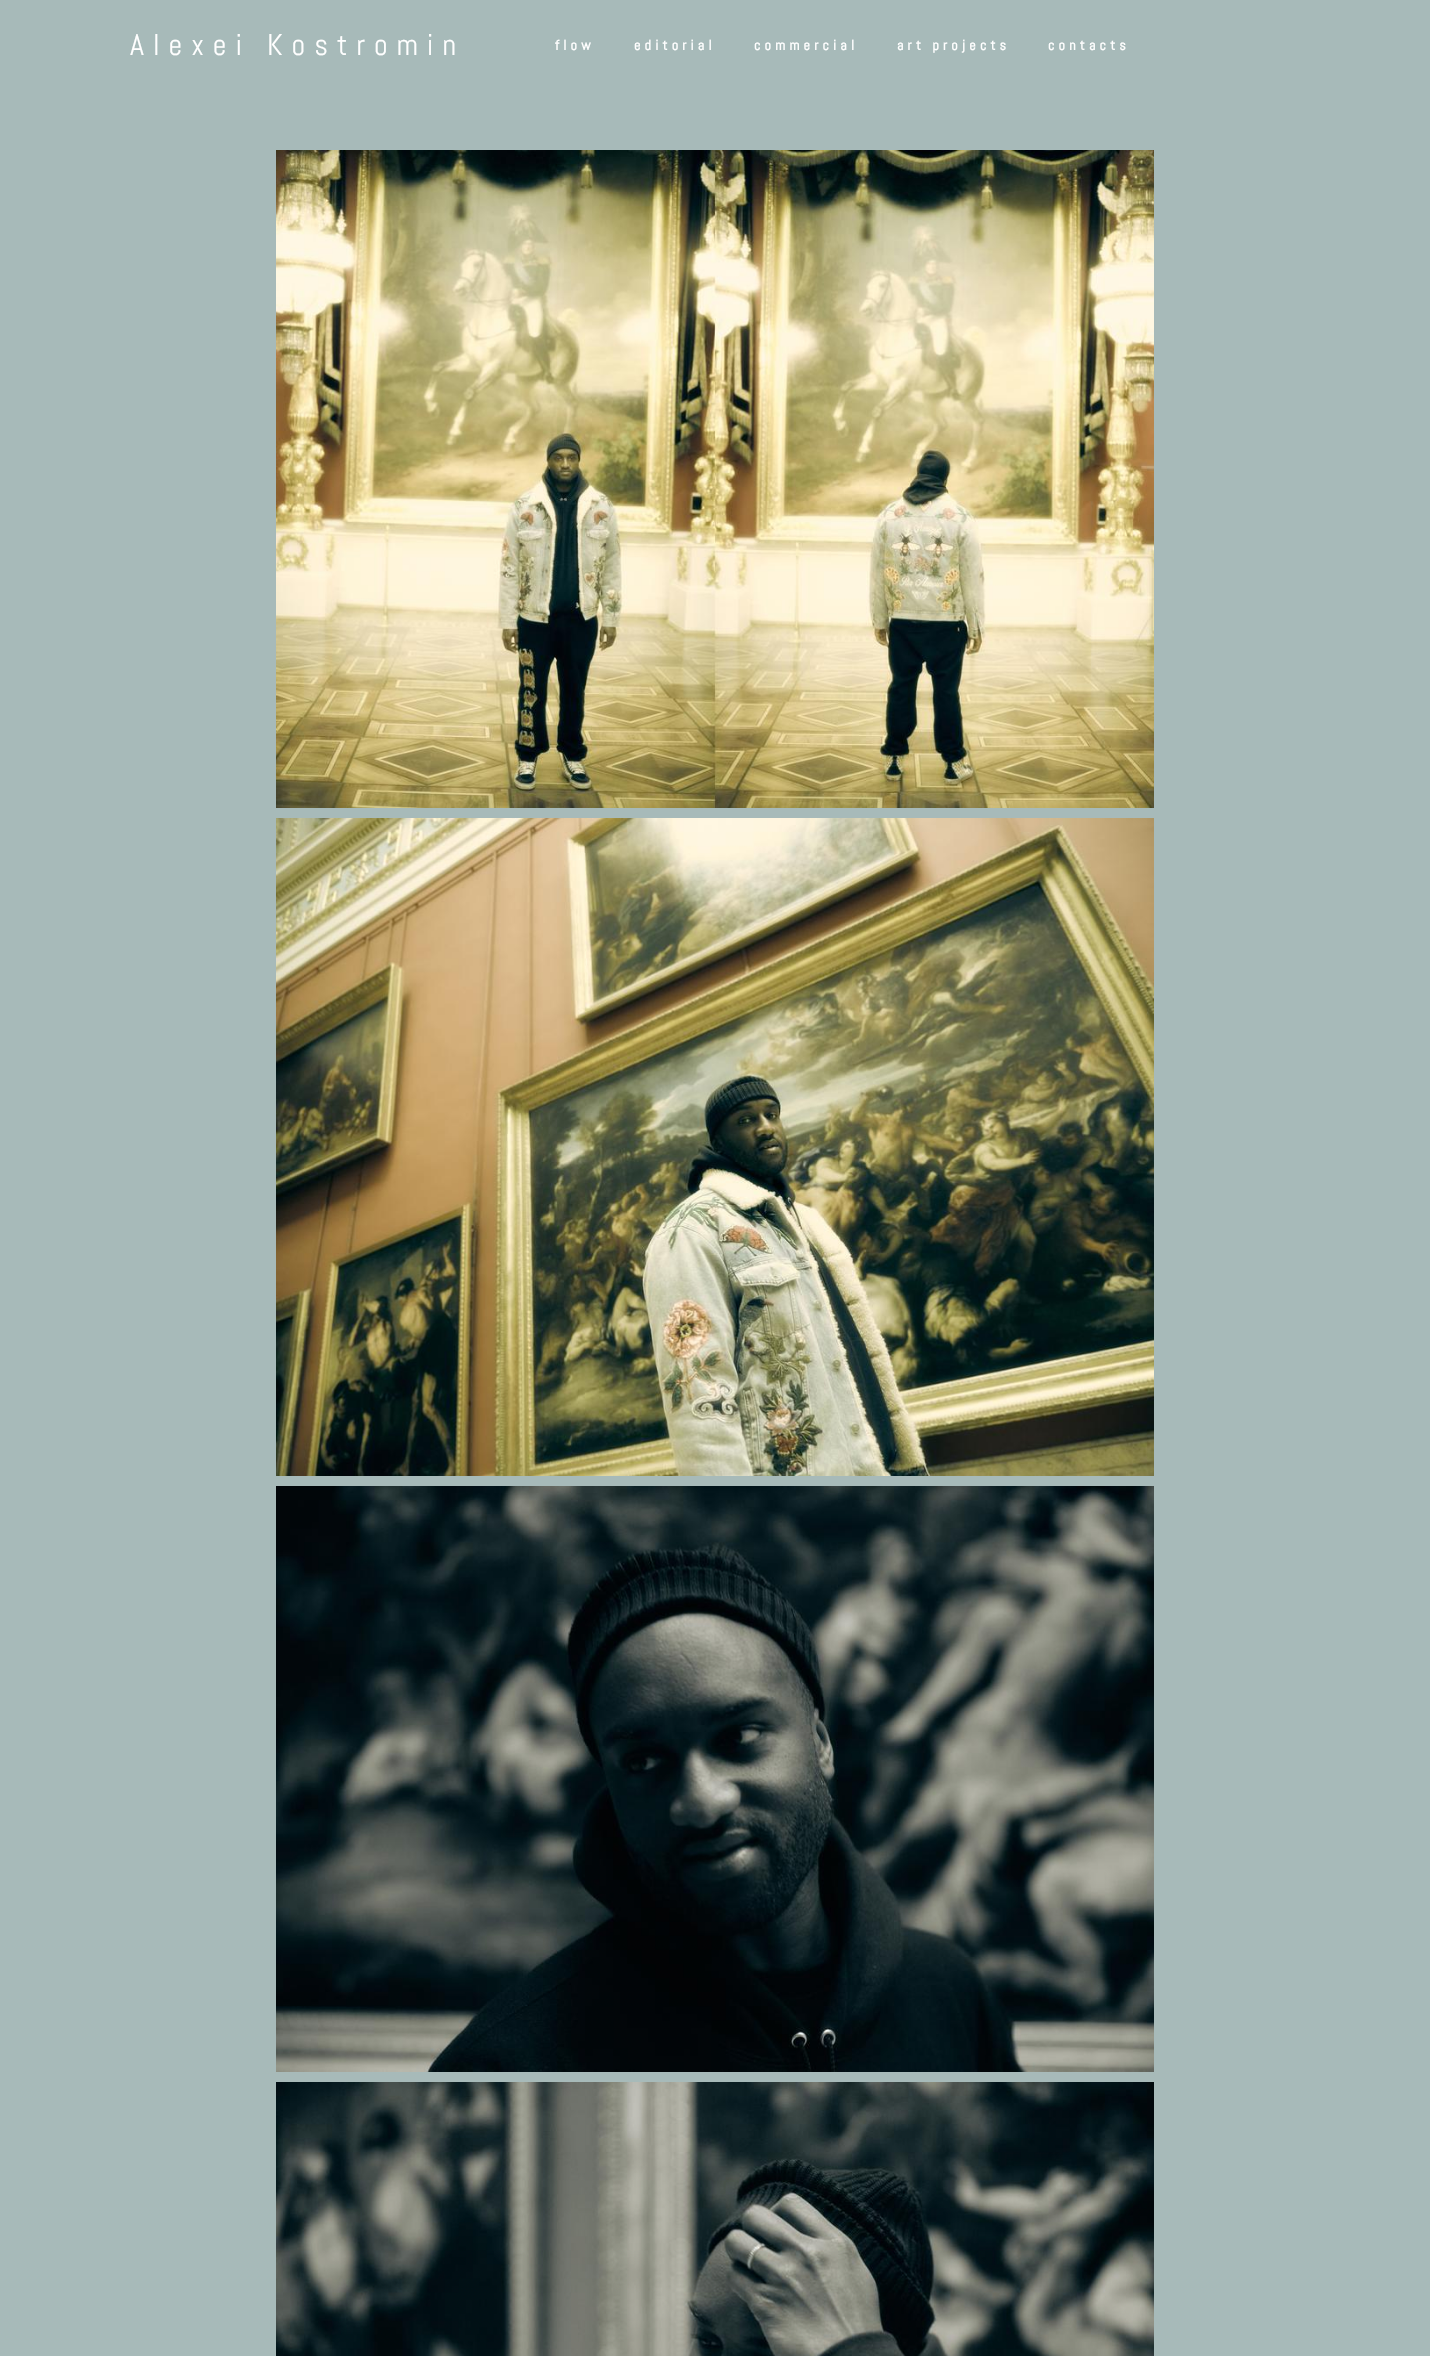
#include "include/core/SkBlurTypes.h"
#include "include/core/SkCanvas.h"
#include "include/core/SkData.h"
#include "include/core/SkFont.h"
#include "include/core/SkFontMgr.h"
#include "include/core/SkImage.h"
#include "include/core/SkMaskFilter.h"
#include "include/core/SkPaint.h"
#include "include/core/SkPathBuilder.h"
#include "include/core/SkTextBlob.h"
#include "include/effects/SkDashPathEffect.h"
#include "include/effects/SkGradientShader.h"
#include "include/utils/SkParsePath.h"

extern sk_sp<SkFontMgr> fontMgr;

void draw(SkCanvas* canvas) {
    SkPaint p;
    p.setAntiAlias(true);
    auto font = [&](const char* family, int weight, float size, bool italic = false) {
        SkFontStyle style(weight, SkFontStyle::kNormal_Width,
            italic ? SkFontStyle::kItalic_Slant : SkFontStyle::kUpright_Slant);
        SkFont result(fontMgr->matchFamilyStyle(family, style), size);
        result.setSubpixel(true);
        return result;
    };
    auto drawTracked = [&](const char* s, float x, float y, const SkFont& font, const SkPaint& ink, float letter, float word) {
        std::vector<SkGlyphID> glyphs(font.countText(s, strlen(s), SkTextEncoding::kUTF8));
        std::vector<float> xs(glyphs.size());
        font.textToGlyphs(s, strlen(s), SkTextEncoding::kUTF8, glyphs);
        font.getXPos(glyphs, xs, x);
        float extra = 0;
        for (size_t i = 0; i < glyphs.size(); i++) {
            xs[i] += extra;
            extra += letter + word * (glyphs[i] == font.unicharToGlyph(' '));
        }
        canvas->drawTextBlob(SkTextBlob::MakeFromPosHGlyphs(glyphs, xs, y, font), 0, 0, ink);
    };
    auto drawPhoto = [&](const char* path, float l, float t, float r, float b) {
        auto image = SkImages::DeferredFromEncodedData(SkData::MakeFromFileName(path));
        canvas->drawImageRect(image, SkRect::MakeLTRB(l, t, r, b), SkSamplingOptions());
    };
    canvas->clear(0xFFA7BAB9);
    auto font1 = font("Abel", 400, 30);
    p.setColor(0xFFFFFFFF);
    drawTracked("Alexei Kostromin", 130, 55, font1, p, 9, 0);
    auto font2 = font("Abel", 700, 14);
    {
        const struct { const char* s; float x, y; } items[] = {
            {"flow", 555, 50},
            {"editorial", 634, 50},
            {"commercial", 754, 50},
            {"art projects", 897, 50},
            {"contacts", 1048, 50},
        };
        for (auto [s, x, y] : items) {
            drawTracked(s, x, y, font2, p, 4.25f, 0);
        }
    }
    drawPhoto("media/1.png", 276, 150, 1154, 808);
    drawPhoto("media/2.png", 276, 818, 1154, 1476);
    drawPhoto("media/3.png", 276, 1486, 1154, 2072);
    drawPhoto("media/4.png", 276, 2082, 1154, 2356);
}
